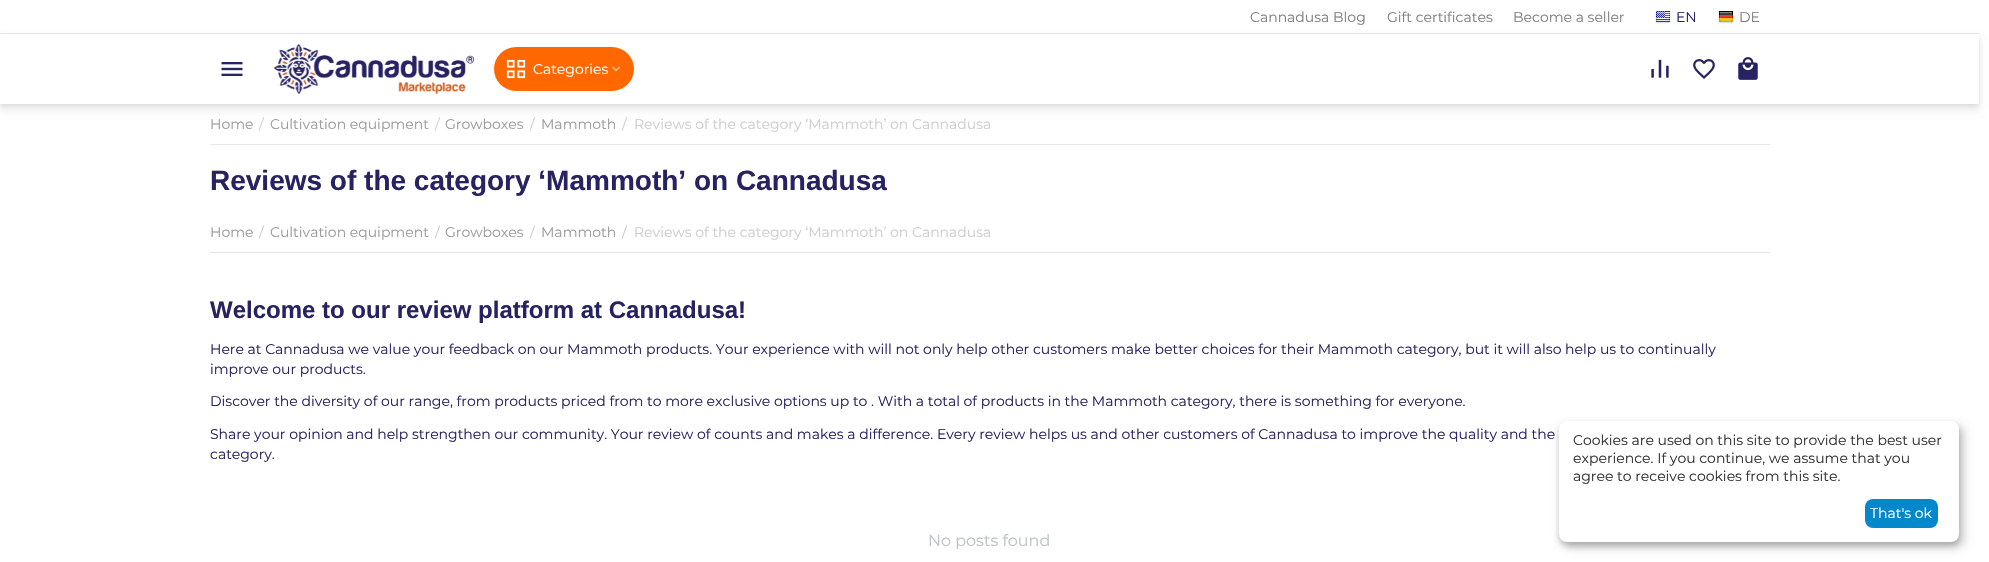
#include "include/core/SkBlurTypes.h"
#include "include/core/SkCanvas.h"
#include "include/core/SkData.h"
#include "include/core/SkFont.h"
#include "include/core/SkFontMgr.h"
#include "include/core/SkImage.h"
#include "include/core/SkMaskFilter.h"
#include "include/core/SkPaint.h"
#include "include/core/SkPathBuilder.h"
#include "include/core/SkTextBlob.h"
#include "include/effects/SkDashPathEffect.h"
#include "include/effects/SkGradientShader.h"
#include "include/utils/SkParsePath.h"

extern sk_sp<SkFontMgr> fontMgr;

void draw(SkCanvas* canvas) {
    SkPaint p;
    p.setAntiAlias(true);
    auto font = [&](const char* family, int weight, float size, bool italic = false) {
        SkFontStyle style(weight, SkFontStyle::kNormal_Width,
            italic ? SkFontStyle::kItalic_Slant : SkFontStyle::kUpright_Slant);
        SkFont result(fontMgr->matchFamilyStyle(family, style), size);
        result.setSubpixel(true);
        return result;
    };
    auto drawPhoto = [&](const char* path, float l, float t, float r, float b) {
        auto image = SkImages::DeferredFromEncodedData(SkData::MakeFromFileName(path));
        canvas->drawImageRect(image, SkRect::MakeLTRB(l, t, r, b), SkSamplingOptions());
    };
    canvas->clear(0xFFFFFFFF);
    canvas->save();
    canvas->clipPath(SkPathBuilder(SkPathFillType::kEvenOdd).moveTo(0, 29).lineTo(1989, 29).lineTo(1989, 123).lineTo(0, 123).close().moveTo(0, 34).lineTo(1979, 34).lineTo(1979, 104).lineTo(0, 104).close().detach(), true);
    p.setColor(0x0D000000);
    p.setMaskFilter(SkMaskFilter::MakeBlur(kNormal_SkBlurStyle, 3.5f));
    canvas->drawRect(SkRect::MakeLTRB(0, 41, 1979, 111), p);
    p.setMaskFilter(nullptr);
    canvas->restore();
    canvas->save();
    canvas->clipPath(SkPathBuilder(SkPathFillType::kEvenOdd).moveTo(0, 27).lineTo(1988, 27).lineTo(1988, 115).lineTo(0, 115).close().moveTo(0, 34).lineTo(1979, 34).lineTo(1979, 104).lineTo(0, 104).close().detach(), true);
    p.setColor(0x1A000000);
    p.setMaskFilter(SkMaskFilter::MakeBlur(kNormal_SkBlurStyle, 2.5f));
    canvas->drawRect(SkRect::MakeLTRB(0, 36, 1979, 106), p);
    p.setMaskFilter(nullptr);
    canvas->restore();
    p.setColor(0xFFE6E6E6);
    canvas->drawRect(SkRect::MakeLTRB(0, 33, 1979, 34), p);
    auto font1 = font("Montserrat", 100, 14);
    p.setColor(0xFF808080);
    {
        const struct { const char* s; float x, y; } items[] = {
            {"Cannadusa Blog", 1250, 22},
            {"Gift certificates", 1387, 22},
            {"Become a seller", 1513, 22},
        };
        for (auto [s, x, y] : items) {
            canvas->drawString(s, x, y, font1, p);
        }
    }
    drawPhoto("media/1.png", 1655, 11, 1671, 24);
    p.setColor(0xFF272261);
    canvas->drawString("EN", 1676, 22, font1, p);
    drawPhoto("media/2.png", 1718, 11, 1734, 24);
    p.setColor(0xFF808080);
    canvas->drawString("DE", 1739, 22, font1, p);
    drawPhoto("media/3.png", 221, 62, 243, 76);
    drawPhoto("media/4.png", 273, 44, 474, 94);
    p.setColor(0xFFFF6800);
    canvas->drawRoundRect(SkRect::MakeLTRB(494, 47, 634, 91), 22, 22, p);
    drawPhoto("media/5.png", 506, 59, 526, 79);
    p.setColor(0xFFFFFFFF);
    canvas->drawString("Categories", 533, 74, font1, p);
    drawPhoto("media/6.png", 612, 66, 620, 72);
    drawPhoto("media/7.png", 1651, 59, 1669, 78);
    drawPhoto("media/8.png", 1693, 59, 1715, 79);
    drawPhoto("media/9.png", 1738, 57, 1758, 80);
    p.setColor(0xFFE6E6E6);
    canvas->drawRect(SkRect::MakeLTRB(210, 144, 1770, 145), p);
    p.setColor(0xFF9B9B9B);
    canvas->drawString("Home", 210, 129, font1, p);
    p.setColor(0xFFCECECE);
    canvas->drawString("/", 259, 129, font1, p);
    p.setColor(0xFF9B9B9B);
    canvas->drawString("Cultivation equipment", 270, 129, font1, p);
    p.setColor(0xFFCECECE);
    canvas->drawString("/", 435, 129, font1, p);
    p.setColor(0xFF9B9B9B);
    canvas->drawString("Growboxes", 445, 129, font1, p);
    p.setColor(0xFFCECECE);
    canvas->drawString("/", 530, 129, font1, p);
    p.setColor(0xFF9B9B9B);
    canvas->drawString("Mammoth", 541, 129, font1, p);
    p.setColor(0xFFCECECE);
    canvas->drawString("/", 622, 129, font1, p);
    canvas->drawString("Reviews of the category ‘Mammoth’ on Cannadusa", 634, 129, font1, p);
    auto font2 = font("Liberation Sans", 700, 28);
    p.setColor(0xFF272261);
    canvas->drawString("Reviews of the category ‘Mammoth’ on Cannadusa", 210, 190, font2, p);
    p.setColor(0xFFE6E6E6);
    canvas->drawRect(SkRect::MakeLTRB(210, 252, 1770, 253), p);
    p.setColor(0xFF9B9B9B);
    canvas->drawString("Home", 210, 237, font1, p);
    p.setColor(0xFFCECECE);
    canvas->drawString("/", 259, 237, font1, p);
    p.setColor(0xFF9B9B9B);
    canvas->drawString("Cultivation equipment", 270, 237, font1, p);
    p.setColor(0xFFCECECE);
    canvas->drawString("/", 435, 237, font1, p);
    p.setColor(0xFF9B9B9B);
    canvas->drawString("Growboxes", 445, 237, font1, p);
    p.setColor(0xFFCECECE);
    canvas->drawString("/", 530, 237, font1, p);
    p.setColor(0xFF9B9B9B);
    canvas->drawString("Mammoth", 541, 237, font1, p);
    p.setColor(0xFFCECECE);
    canvas->drawString("/", 622, 237, font1, p);
    canvas->drawString("Reviews of the category ‘Mammoth’ on Cannadusa", 634, 237, font1, p);
    auto font3 = font("Liberation Sans", 700, 24);
    p.setColor(0xFF272261);
    canvas->drawString("Welcome to our review platform at Cannadusa!", 210, 318, font3, p);
    {
        const struct { const char* s; float x, y; } items[] = {
            {"Here at Cannadusa we value your feedback on our Mammoth products. Your experience with will not only help other customers make better choices for their Mammoth category, but it will also help us to continually", 210, 354},
            {"improve our products.", 210, 374},
            {"Discover the diversity of our range, from products priced from to more exclusive options up to . With a total of products in the Mammoth category, there is something for everyone.", 210, 406},
            {"Share your opinion and help strengthen our community. Your review of counts and makes a difference. Every review helps us and other customers of Cannadusa to improve the quality and the", 210, 439},
            {"category.", 210, 459},
        };
        for (auto [s, x, y] : items) {
            canvas->drawString(s, x, y, font1, p);
        }
    }
    auto font4 = font("Montserrat", 100, 16);
    p.setColor(0xFFBDC3C7);
    canvas->drawString("No posts found", 928, 546, font4, p);
    p.setColor(0x30000000);
    p.setMaskFilter(SkMaskFilter::MakeBlur(kNormal_SkBlurStyle, 5));
    canvas->drawRoundRect(SkRect::MakeLTRB(1564, 426, 1964, 547), 8, 8, p);
    p.setMaskFilter(nullptr);
    p.setColor(0x33000000);
    p.setMaskFilter(SkMaskFilter::MakeBlur(kNormal_SkBlurStyle, 3));
    canvas->drawRoundRect(SkRect::MakeLTRB(1559, 425, 1959, 546), 8, 8, p);
    p.setMaskFilter(nullptr);
    p.setColor(0xFFFFFFFF);
    canvas->drawRoundRect(SkRect::MakeLTRB(1559, 421, 1959, 542), 8, 8, p);
    p.setColor(0xFF333333);
    {
        const struct { const char* s; float x, y; } items[] = {
            {"Cookies are used on this site to provide the best user", 1573, 445},
            {"experience. If you continue, we assume that you", 1573, 463},
            {"agree to receive cookies from this site.", 1573, 481},
        };
        for (auto [s, x, y] : items) {
            canvas->drawString(s, x, y, font1, p);
        }
    }
    p.setColor(0xFF0388CC);
    canvas->drawRoundRect(SkRect::MakeLTRB(1865, 499, 1938, 528), 8, 8, p);
    p.setColor(0xFFFFFFFF);
    canvas->drawString("That's ok", 1870, 518, font1, p);
}
